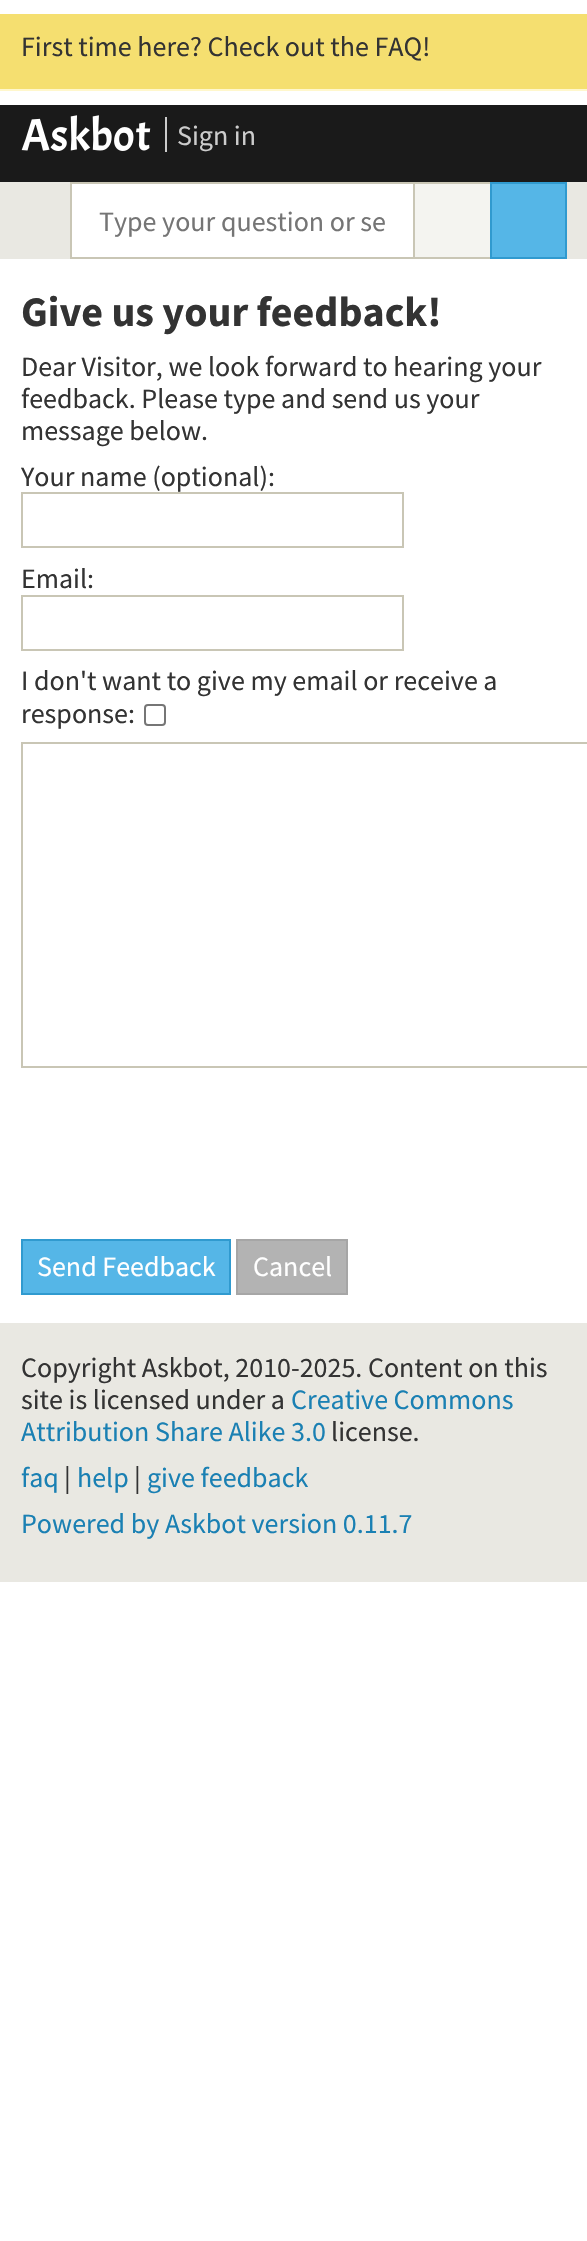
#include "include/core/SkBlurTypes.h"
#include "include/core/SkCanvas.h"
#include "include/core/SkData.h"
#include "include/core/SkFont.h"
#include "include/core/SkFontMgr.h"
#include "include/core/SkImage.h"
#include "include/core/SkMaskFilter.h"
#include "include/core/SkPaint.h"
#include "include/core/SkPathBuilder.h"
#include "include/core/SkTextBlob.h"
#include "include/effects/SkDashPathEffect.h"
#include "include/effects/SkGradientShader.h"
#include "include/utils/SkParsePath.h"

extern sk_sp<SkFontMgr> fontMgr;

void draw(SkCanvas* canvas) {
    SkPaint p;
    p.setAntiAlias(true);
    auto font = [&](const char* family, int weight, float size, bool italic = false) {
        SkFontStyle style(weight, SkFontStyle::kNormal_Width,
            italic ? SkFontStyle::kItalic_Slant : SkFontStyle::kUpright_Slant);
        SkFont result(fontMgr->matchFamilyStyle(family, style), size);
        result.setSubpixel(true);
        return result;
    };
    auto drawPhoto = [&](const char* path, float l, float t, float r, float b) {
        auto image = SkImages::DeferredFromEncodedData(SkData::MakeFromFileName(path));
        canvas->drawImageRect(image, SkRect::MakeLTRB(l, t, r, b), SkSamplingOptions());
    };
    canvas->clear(0xFFFFFFFF);
    p.setColor(0xFFF5DF70);
    canvas->drawRect(SkRect::MakeLTRB(0, 14, 587, 89), p);
    p.setColor(0xFFFFF7CC);
    canvas->drawRect(SkRect::MakeLTRB(0, 89, 587, 91), p);
    auto font1 = font("Source Sans Pro", 400, 28);
    p.setColor(0xFF333333);
    canvas->drawString("First time here? Check out the FAQ!", 21, 56, font1, p);
    p.setColor(0xFF1A1A1A);
    canvas->drawRect(SkRect::MakeLTRB(0, 105, 587, 182), p);
    drawPhoto("media/1.png", 21, 115, 151, 151);
    p.setColor(0xFFCCCCCC);
    canvas->drawString("Sign in", 177, 145, font1, p);
    {
        const struct { float l, t, r, b; SkColor color; } items[] = {
            {165, 117, 167, 152, 0xFFCCCCCC},
            {0, 182, 587, 259, 0xFFE9E8E2},
            {72, 184, 413, 257, 0xFFFFFFFF},
            {70, 182, 490, 184, 0xFFC9C6B5},
            {70, 257, 490, 259, 0xFFC9C6B5},
            {70, 182, 72, 259, 0xFFC9C6B5},
        };
        for (auto [l, t, r, b, color] : items) {
            p.setColor(color);
            canvas->drawRect(SkRect::MakeLTRB(l, t, r, b), p);
        }
    }
    p.setColor(0xFF757575);
    canvas->drawString("Type your question or se", 99, 231, font1, p);
    p.setColor(0xFFF4F4F0);
    canvas->drawRect(SkRect::MakeLTRB(415, 184, 490, 257), p);
    p.setColor(0xFFC9C6B5);
    canvas->drawRect(SkRect::MakeLTRB(413, 182, 415, 259), p);
    p.setColor(0xFF55B6E7);
    canvas->drawRect(SkRect::MakeLTRB(491, 183, 566, 258), p);
    p.setStyle(SkPaint::kStroke_Style);
    p.setStrokeWidth(2);
    p.setColor(0xFF309ACF);
    canvas->drawRect(SkRect::MakeLTRB(491, 183, 566, 258), p);
    auto font2 = font("Source Sans Pro", 700, 42);
    p.setStyle(SkPaint::kFill_Style);
    p.setColor(0xFF333333);
    canvas->drawString("Give us your feedback!", 21, 326, font2, p);
    {
        const struct { const char* s; float x, y; } items[] = {
            {"Dear Visitor, we look forward to hearing your", 21, 376},
            {"feedback. Please type and send us your", 21, 408},
            {"message below.", 21, 440},
            {"Your name (optional):", 21, 486},
        };
        for (auto [s, x, y] : items) {
            canvas->drawString(s, x, y, font1, p);
        }
    }
    p.setStyle(SkPaint::kStroke_Style);
    p.setColor(0xFFC9C6B5);
    canvas->drawRect(SkRect::MakeLTRB(22, 493, 403, 547), p);
    p.setStyle(SkPaint::kFill_Style);
    p.setColor(0xFF333333);
    canvas->drawString("Email:", 21, 588, font1, p);
    p.setStyle(SkPaint::kStroke_Style);
    p.setColor(0xFFC9C6B5);
    canvas->drawRect(SkRect::MakeLTRB(22, 596, 403, 650), p);
    p.setStyle(SkPaint::kFill_Style);
    p.setColor(0xFF333333);
    canvas->drawString("I don't want to give my email or receive a", 21, 690, font1, p);
    canvas->drawString("response:", 21, 723, font1, p);
    p.setStyle(SkPaint::kStroke_Style);
    p.setColor(0xFF767676);
    canvas->drawRoundRect(SkRect::MakeLTRB(145, 705, 165, 725), 3, 3, p);
    p.setColor(0xFFC9C6B5);
    canvas->drawRect(SkRect::MakeLTRB(22, 743, 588, 1067), p);
    p.setStyle(SkPaint::kFill_Style);
    p.setColor(0xFF55B6E7);
    canvas->drawRect(SkRect::MakeLTRB(22, 1240, 230, 1294), p);
    p.setStyle(SkPaint::kStroke_Style);
    p.setColor(0xFF309ACF);
    canvas->drawRect(SkRect::MakeLTRB(22, 1240, 230, 1294), p);
    p.setStyle(SkPaint::kFill_Style);
    p.setColor(0xFFFFFFFF);
    canvas->drawString("Send Feedback", 37, 1276, font1, p);
    p.setColor(0xFFB3B3B3);
    canvas->drawRect(SkRect::MakeLTRB(237, 1240, 347, 1294), p);
    p.setStyle(SkPaint::kStroke_Style);
    p.setColor(0xFFA6A6A6);
    canvas->drawRect(SkRect::MakeLTRB(237, 1240, 347, 1294), p);
    p.setStyle(SkPaint::kFill_Style);
    p.setColor(0xFFFFFFFF);
    canvas->drawString("Cancel", 253, 1276, font1, p);
    p.setColor(0xFFE9E8E2);
    canvas->drawRect(SkRect::MakeLTRB(0, 1323, 587, 1582), p);
    p.setColor(0xFF333333);
    canvas->drawString("Copyright Askbot, 2010-2025. Content on this", 21, 1377, font1, p);
    canvas->drawString("site is licensed under a", 21, 1409, font1, p);
    p.setColor(0xFF1A80B3);
    canvas->drawString("Creative Commons", 291, 1409, font1, p);
    canvas->drawString("Attribution Share Alike 3.0", 21, 1441, font1, p);
    p.setColor(0xFF333333);
    canvas->drawString("license.", 331, 1441, font1, p);
    p.setColor(0xFF1A80B3);
    canvas->drawString("faq", 21, 1487, font1, p);
    p.setColor(0xFF333333);
    canvas->drawString("|", 64, 1487, font1, p);
    p.setColor(0xFF1A80B3);
    canvas->drawString("help", 77, 1487, font1, p);
    p.setColor(0xFF333333);
    canvas->drawString("|", 134, 1487, font1, p);
    p.setColor(0xFF1A80B3);
    canvas->drawString("give feedback", 147, 1487, font1, p);
    canvas->drawString("Powered by Askbot version 0.11.7", 21, 1533, font1, p);
}
